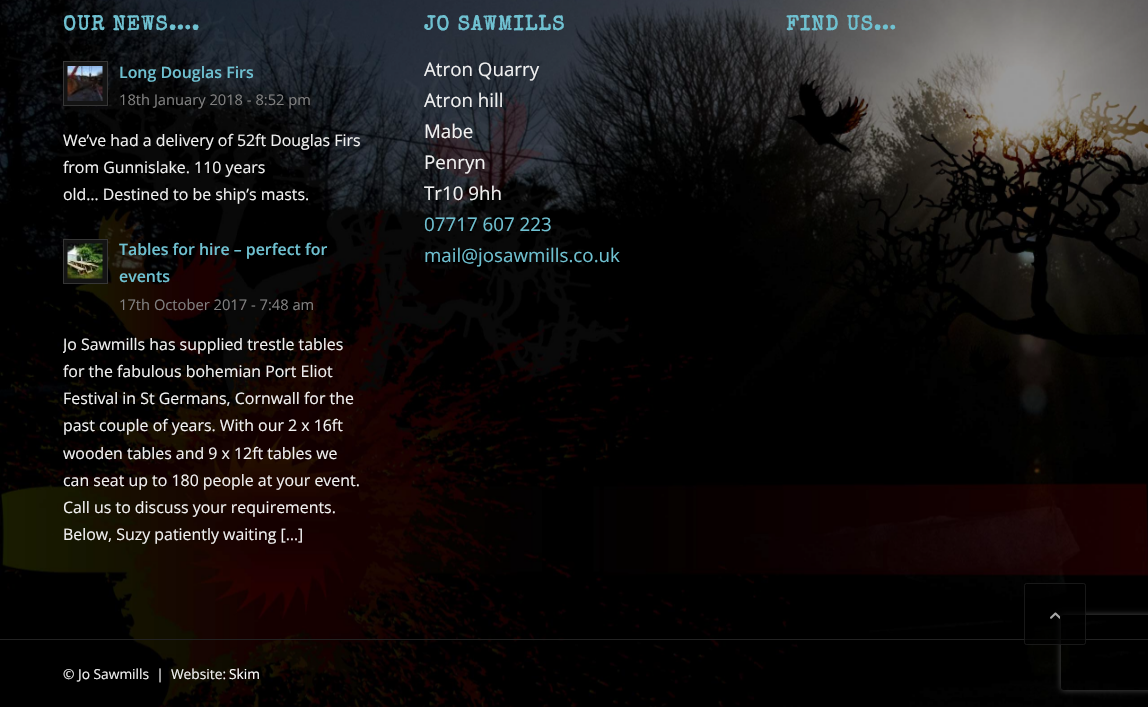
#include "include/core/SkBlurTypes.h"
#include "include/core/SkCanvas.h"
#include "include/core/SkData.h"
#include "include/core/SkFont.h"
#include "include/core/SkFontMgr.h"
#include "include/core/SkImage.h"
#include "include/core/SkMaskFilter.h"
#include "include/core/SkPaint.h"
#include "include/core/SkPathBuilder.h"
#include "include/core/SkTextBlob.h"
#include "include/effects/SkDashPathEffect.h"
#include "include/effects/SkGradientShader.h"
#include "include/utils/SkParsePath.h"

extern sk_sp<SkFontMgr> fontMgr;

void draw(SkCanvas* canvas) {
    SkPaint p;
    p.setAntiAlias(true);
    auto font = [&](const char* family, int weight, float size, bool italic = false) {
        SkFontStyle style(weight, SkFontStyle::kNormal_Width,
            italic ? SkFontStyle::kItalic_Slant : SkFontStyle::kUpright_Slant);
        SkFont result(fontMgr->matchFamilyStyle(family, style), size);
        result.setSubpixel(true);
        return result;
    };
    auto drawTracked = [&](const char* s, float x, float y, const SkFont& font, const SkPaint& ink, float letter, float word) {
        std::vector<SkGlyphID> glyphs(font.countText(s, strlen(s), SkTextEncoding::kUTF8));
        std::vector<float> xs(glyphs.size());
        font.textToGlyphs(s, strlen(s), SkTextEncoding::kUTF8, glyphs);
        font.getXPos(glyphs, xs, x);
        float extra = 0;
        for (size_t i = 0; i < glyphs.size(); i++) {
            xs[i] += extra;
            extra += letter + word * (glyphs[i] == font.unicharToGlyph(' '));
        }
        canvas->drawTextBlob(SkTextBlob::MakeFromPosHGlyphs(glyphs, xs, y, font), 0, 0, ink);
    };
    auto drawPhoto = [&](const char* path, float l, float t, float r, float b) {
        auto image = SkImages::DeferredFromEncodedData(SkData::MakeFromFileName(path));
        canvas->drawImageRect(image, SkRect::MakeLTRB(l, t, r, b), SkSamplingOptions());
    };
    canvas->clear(0xFFFFFFFF);
    drawPhoto("media/1.png", 0, 0, 1148, 707);
    canvas->save();
    canvas->clipPath(SkPathBuilder(SkPathFillType::kEvenOdd).moveTo(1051, 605).lineTo(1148, 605).lineTo(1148, 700).lineTo(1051, 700).close().moveTo(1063.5f, 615).lineTo(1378.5f, 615).cubicTo(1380, 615, 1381, 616, 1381, 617.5f).lineTo(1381, 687.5f).cubicTo(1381, 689, 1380, 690, 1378.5f, 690).lineTo(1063.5f, 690).cubicTo(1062, 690, 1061, 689, 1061, 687.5f).lineTo(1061, 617.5f).cubicTo(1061, 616, 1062, 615, 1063.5f, 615).close().detach(), true);
    p.setColor(0xFF808080);
    p.setMaskFilter(SkMaskFilter::MakeBlur(kNormal_SkBlurStyle, 3));
    canvas->drawRoundRect(SkRect::MakeLTRB(1061, 615, 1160, 690), 2.5f, 2.5f, p);
    p.setMaskFilter(nullptr);
    canvas->restore();
    p.setColor(0x66000000);
    canvas->drawRect(SkRect::MakeLTRB(0, 0, 1148, 639), p);
    auto font1 = font("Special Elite", 700, 20.5f);
    p.setColor(0xFF6FC1D1);
    drawTracked("OUR NEWS….", 63, 30, font1, p, 1.25f, 0);
    p.setColor(0xFF141414);
    canvas->drawRect(SkRect::MakeLTRB(63.5f, 61.5f, 107.5f, 105.5f), p);
    p.setStyle(SkPaint::kStroke_Style);
    p.setStrokeWidth(1);
    p.setColor(0xFF363636);
    canvas->drawRect(SkRect::MakeLTRB(63.5f, 61.5f, 107.5f, 105.5f), p);
    drawPhoto("media/2.png", 67, 66, 103, 101);
    auto font2 = font("Open Sans", 600, 15.9f);
    p.setStyle(SkPaint::kFill_Style);
    p.setColor(0xFF6FC1D1);
    canvas->drawString("Long Douglas Firs", 119, 78, font2, p);
    auto font3 = font("Open Sans", 400, 14.7f);
    p.setColor(0xFF808080);
    canvas->drawString("18th January 2018 - 8:52 pm", 119, 105, font3, p);
    auto font4 = font("Open Sans", 400, 15.9f);
    p.setColor(0xFFF1F1F1);
    {
        const struct { const char* s; float x, y; } items[] = {
            {"We’ve had a delivery of 52ft Douglas Firs", 63, 146},
            {"from Gunnislake. 110 years", 63, 173},
            {"old… Destined to be ship’s masts.", 63, 200},
        };
        for (auto [s, x, y] : items) {
            canvas->drawString(s, x, y, font4, p);
        }
    }
    p.setColor(0xFF141414);
    canvas->drawRect(SkRect::MakeLTRB(63.5f, 239.5f, 107.5f, 283.5f), p);
    p.setStyle(SkPaint::kStroke_Style);
    p.setColor(0xFF363636);
    canvas->drawRect(SkRect::MakeLTRB(63.5f, 239.5f, 107.5f, 283.5f), p);
    drawPhoto("media/3.png", 67, 243, 103, 279);
    p.setStyle(SkPaint::kFill_Style);
    p.setColor(0xFF6FC1D1);
    canvas->drawString("Tables for hire – perfect for", 119, 255, font2, p);
    canvas->drawString("events", 119, 282, font2, p);
    p.setColor(0xFF808080);
    canvas->drawString("17th October 2017 - 7:48 am", 119, 310, font3, p);
    canvas->save();
    canvas->clipRect(SkRect::MakeLTRB(63, 225, 363, 565));
    p.setColor(0xFFF1F1F1);
    canvas->drawString("Jo Sawmills has supplied trestle tables", 63, 350, font4, p);
    canvas->restore();
    {
        const struct { const char* s; float x, y; } items[] = {
            {"for the fabulous bohemian Port Eliot", 63, 377},
            {"Festival in St Germans, Cornwall for the", 63, 404},
            {"past couple of years. With our 2 x 16ft", 63, 431},
            {"wooden tables and 9 x 12ft tables we", 63, 459},
            {"can seat up to 180 people at your event.", 63, 486},
            {"Call us to discuss your requirements.", 63, 513},
            {"Below, Suzy patiently waiting […]", 63, 540},
        };
        for (auto [s, x, y] : items) {
            canvas->drawString(s, x, y, font4, p);
        }
    }
    p.setColor(0xFF6FC1D1);
    drawTracked("JO SAWMILLS", 424, 30, font1, p, 1.25f, 0);
    auto font5 = font("Open Sans", 400, 18.75f);
    p.setColor(0xFFF1F1F1);
    {
        const struct { const char* s; float x, y; } items[] = {
            {"Atron Quarry", 424, 76},
            {"Atron hill", 424, 107},
            {"Mabe", 424, 138},
            {"Penryn", 424, 169},
            {"Tr10 9hh", 424, 200},
        };
        for (auto [s, x, y] : items) {
            canvas->drawString(s, x, y, font5, p);
        }
    }
    p.setColor(0xFF6FC1D1);
    canvas->drawString("07717 607 223", 424, 231, font5, p);
    canvas->drawString("mail@josawmills.co.uk", 424, 262, font5, p);
    drawTracked("FIND US…", 786, 30, font1, p, 1.25f, 0);
    p.setColor(0x66000000);
    canvas->drawRect(SkRect::MakeLTRB(134, 640, 1148, 707), p);
    p.setColor(0xFF222222);
    canvas->drawRect(SkRect::MakeLTRB(0, 639, 1148, 640), p);
    auto font6 = font("Open Sans", 400, 13.75f);
    p.setColor(0xFFF1F1F1);
    canvas->drawString("© Jo Sawmills  |  Website:", 63, 679, font6, p);
    p.setColor(0xFFFFFFFF);
    canvas->drawString("Skim", 229, 679, font6, p);
    p.setColor(0xB3000000);
    canvas->drawRoundRect(SkRect::MakeLTRB(1024, 583, 1086, 645), 2.5f, 2.5f, p);
    p.setStyle(SkPaint::kStroke_Style);
    p.setColor(0xB3222222);
    canvas->drawRoundRect(SkRect::MakeLTRB(1024.5f, 583.5f, 1085.5f, 644.5f), 2, 2, p);
    drawPhoto("media/4.png", 1050, 612, 1060, 619);
}
